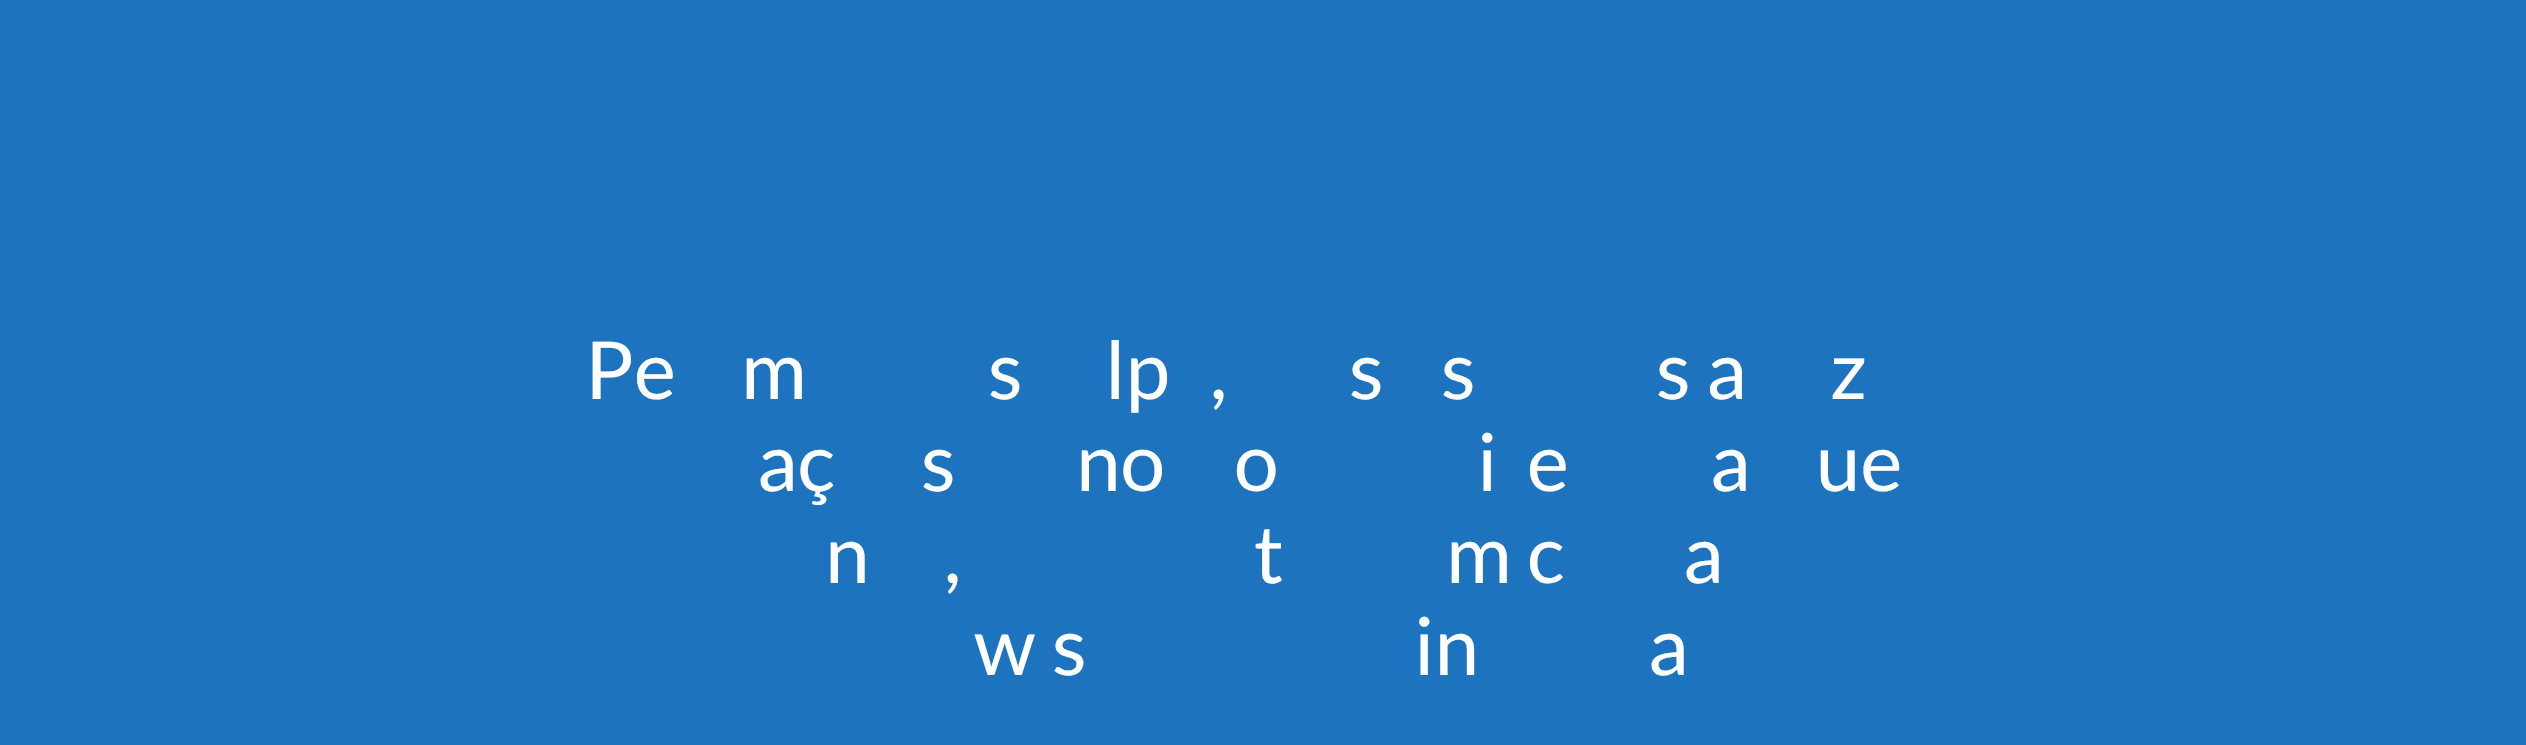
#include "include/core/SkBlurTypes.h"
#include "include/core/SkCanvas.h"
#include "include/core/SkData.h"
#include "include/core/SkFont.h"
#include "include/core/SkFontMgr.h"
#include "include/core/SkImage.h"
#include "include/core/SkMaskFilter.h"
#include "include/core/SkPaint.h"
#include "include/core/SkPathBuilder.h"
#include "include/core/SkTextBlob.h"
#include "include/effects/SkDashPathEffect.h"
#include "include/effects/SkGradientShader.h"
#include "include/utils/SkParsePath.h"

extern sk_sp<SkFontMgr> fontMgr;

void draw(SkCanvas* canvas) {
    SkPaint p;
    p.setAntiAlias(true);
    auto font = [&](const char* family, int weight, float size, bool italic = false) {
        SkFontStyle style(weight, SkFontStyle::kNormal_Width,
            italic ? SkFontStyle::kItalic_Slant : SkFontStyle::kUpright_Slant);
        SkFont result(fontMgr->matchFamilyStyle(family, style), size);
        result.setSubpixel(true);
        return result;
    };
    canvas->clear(0xFF1E73BE);
    auto font1 = font("Lato", 400, 80);
    p.setColor(0xFFFFFFFF);
    {
        const struct { const char* s; float x, y; } items[] = {
            {"Pe", 585, 399},
            {"m", 741, 399},
            {"s", 988, 399},
            {"lp", 1105, 399},
            {",", 1210, 399},
            {"s", 1349, 399},
            {"s", 1441, 399},
            {"s a", 1656, 399},
            {"z", 1830, 399},
            {"aç", 757, 491},
            {"s", 921, 491},
            {"no", 1076, 491},
            {"o", 1234, 491},
            {"i", 1477, 491},
            {"e", 1527, 491},
            {"a", 1710, 491},
            {"ue", 1816, 491},
            {"n", 825, 583},
            {",", 944, 583},
            {"t", 1254, 583},
            {"m c", 1446, 583},
            {"a", 1683, 583},
            {"w", 974, 675},
            {"s", 1052, 675},
            {"in", 1414, 675},
            {"a", 1648, 675},
        };
        for (auto [s, x, y] : items) {
            canvas->drawString(s, x, y, font1, p);
        }
    }
}
